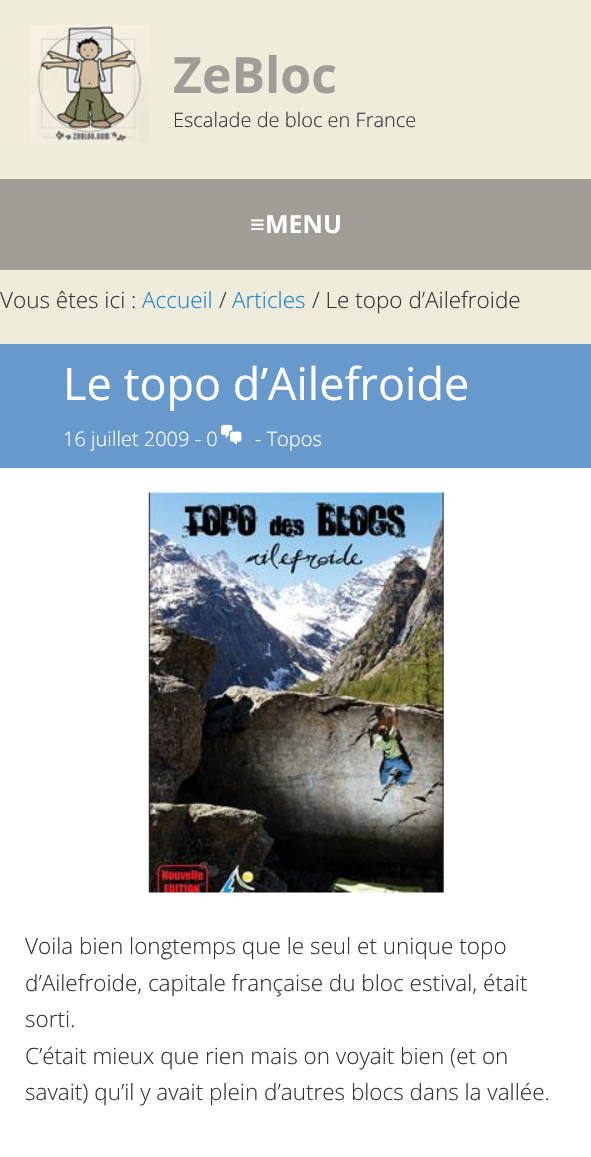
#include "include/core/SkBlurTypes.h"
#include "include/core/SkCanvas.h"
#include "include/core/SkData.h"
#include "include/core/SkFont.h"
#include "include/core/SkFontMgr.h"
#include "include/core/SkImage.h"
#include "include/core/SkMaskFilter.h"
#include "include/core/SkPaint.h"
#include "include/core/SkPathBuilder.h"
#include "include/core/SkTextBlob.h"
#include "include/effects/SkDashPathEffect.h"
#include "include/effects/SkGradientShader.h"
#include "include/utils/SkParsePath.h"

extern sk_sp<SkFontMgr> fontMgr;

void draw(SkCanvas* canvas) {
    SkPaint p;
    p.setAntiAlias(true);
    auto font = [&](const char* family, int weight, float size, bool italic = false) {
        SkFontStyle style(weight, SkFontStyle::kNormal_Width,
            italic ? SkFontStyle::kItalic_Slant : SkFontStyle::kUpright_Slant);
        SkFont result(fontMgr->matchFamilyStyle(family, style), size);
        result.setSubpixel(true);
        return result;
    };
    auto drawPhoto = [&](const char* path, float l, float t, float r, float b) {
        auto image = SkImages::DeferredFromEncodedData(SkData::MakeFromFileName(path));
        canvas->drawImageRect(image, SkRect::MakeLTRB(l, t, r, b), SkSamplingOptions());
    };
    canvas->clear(0xFFF0ECDC);
    drawPhoto("media/1.png", 30, 25, 149, 144);
    auto font1 = font("Open Sans", 700, 50);
    p.setColor(0xFF9F9D95);
    canvas->drawString("ZeBloc", 173, 93, font1, p);
    auto font2 = font("Open Sans", 300, 20);
    p.setColor(0xFF333333);
    canvas->drawString("Escalade de bloc en France", 173, 127, font2, p);
    p.setColor(0xFF9F9D95);
    canvas->drawRect(SkRect::MakeLTRB(0, 179, 591, 270), p);
    auto font3 = font("Liberation Sans", 700, 25);
    p.setColor(0xFFFFFFFF);
    canvas->drawString("≡", 250, 233, font3, p);
    auto font4 = font("Open Sans", 700, 25);
    canvas->drawString("MENU", 265, 233, font4, p);
    auto font5 = font("Open Sans", 300, 22.5f);
    p.setColor(0xFF333333);
    canvas->drawString("Vous êtes ici :", 0, 308, font5, p);
    p.setColor(0xFF1982D1);
    canvas->drawString("Accueil", 142, 308, font5, p);
    p.setColor(0xFF333333);
    canvas->drawString("/", 219, 308, font5, p);
    p.setColor(0xFF1982D1);
    canvas->drawString("Articles", 232, 308, font5, p);
    p.setColor(0xFF333333);
    canvas->drawString("/ Le topo d’Ailefroide", 312, 308, font5, p);
    p.setColor(0xFFFFFFFF);
    canvas->drawRect(SkRect::MakeLTRB(0, 468, 591, 1157), p);
    p.setColor(0xFF6799CC);
    canvas->drawRect(SkRect::MakeLTRB(0, 344, 591, 468), p);
    auto font6 = font("Open Sans", 400, 45);
    p.setColor(0xFFFFFFFF);
    canvas->drawString("Le topo d’Ailefroide", 63, 400, font6, p);
    canvas->drawString("16 juillet 2009 - 0", 63, 446, font2, p);
    drawPhoto("media/2.png", 221, 424, 242, 445);
    canvas->drawString("- Topos", 255, 446, font2, p);
    drawPhoto("media/3.png", 148, 492, 444, 893);
    p.setColor(0xFF333333);
    {
        const struct { const char* s; float x, y; } items[] = {
            {"Voila bien longtemps que le seul et unique topo", 25, 954},
            {"d’Ailefroide, capitale française du bloc estival, était", 25, 991},
            {"sorti.", 25, 1027},
            {"C’était mieux que rien mais on voyait bien (et on", 25, 1064},
            {"savait) qu’il y avait plein d’autres blocs dans la vallée.", 25, 1100},
        };
        for (auto [s, x, y] : items) {
            canvas->drawString(s, x, y, font5, p);
        }
    }
}
